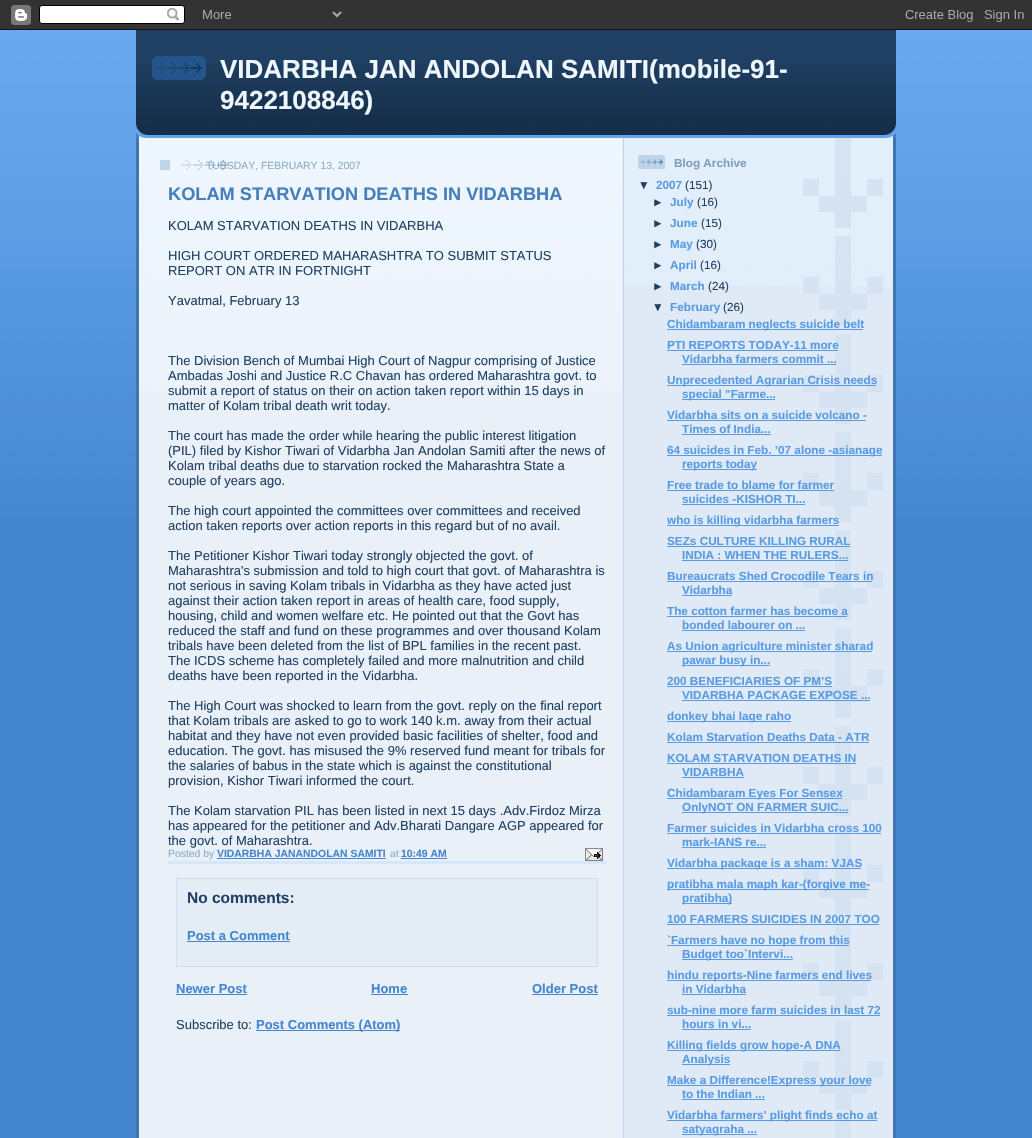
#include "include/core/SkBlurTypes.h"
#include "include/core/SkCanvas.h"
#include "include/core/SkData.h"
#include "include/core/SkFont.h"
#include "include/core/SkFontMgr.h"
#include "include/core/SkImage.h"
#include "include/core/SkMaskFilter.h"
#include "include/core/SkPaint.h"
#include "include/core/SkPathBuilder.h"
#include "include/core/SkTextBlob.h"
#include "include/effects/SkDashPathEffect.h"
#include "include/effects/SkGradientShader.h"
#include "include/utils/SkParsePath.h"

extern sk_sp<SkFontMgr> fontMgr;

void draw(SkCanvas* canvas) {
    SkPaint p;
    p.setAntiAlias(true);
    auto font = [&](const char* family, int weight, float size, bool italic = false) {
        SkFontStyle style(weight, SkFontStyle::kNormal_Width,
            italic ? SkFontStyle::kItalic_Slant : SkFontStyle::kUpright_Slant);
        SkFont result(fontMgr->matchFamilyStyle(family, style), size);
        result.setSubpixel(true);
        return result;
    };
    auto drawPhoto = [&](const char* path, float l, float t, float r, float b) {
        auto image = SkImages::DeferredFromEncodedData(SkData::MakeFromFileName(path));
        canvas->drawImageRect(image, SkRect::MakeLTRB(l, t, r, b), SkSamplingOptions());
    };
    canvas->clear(0xFF4386CE);
    drawPhoto("media/1.png", 0, 30, 1032, 517);
    drawPhoto("media/2.png", 0, 0, 1032, 30);
    drawPhoto("media/3.png", 136, 123, 896, 138);
    p.setColor(0xFF204063);
    canvas->drawRect(SkRect::MakeLTRB(136, 30, 896, 64), p);
    drawPhoto("media/4.png", 136, 64, 896, 123);
    drawPhoto("media/5.png", 152, 56, 206, 80);
    auto font1 = font("Liberation Sans", 700, 26);
    p.setColor(0xFFEEF6FE);
    canvas->drawString("VIDARBHA JAN ANDOLAN SAMITI(mobile-91-", 220, 78, font1, p);
    canvas->drawString("9422108846)", 220, 109, font1, p);
    drawPhoto("media/6.png", 136, 138, 896, 1138);
    drawPhoto("media/7.png", 139, 138, 622, 392);
    p.setColor(0xFFBDD4EB);
    canvas->drawRect(SkRect::MakeLTRB(160, 160, 170, 170), p);
    drawPhoto("media/8.png", 181, 160, 228, 170);
    auto font2 = font("Liberation Sans", 400, 10.4f);
    p.setColor(0xFF8FACC8);
    canvas->drawString("TUESDAY, FEBRUARY 13, 2007", 206, 169, font2, p);
    p.setColor(0xFFD8E7F7);
    canvas->drawRect(SkRect::MakeLTRB(168, 861, 606, 864), p);
    auto font3 = font("Liberation Sans", 700, 18.2f);
    p.setColor(0xFF477FBA);
    canvas->drawString("KOLAM STARVATION DEATHS IN VIDARBHA", 168, 200, font3, p);
    auto font4 = font("Liberation Sans", 400, 13);
    p.setColor(0xFF204063);
    {
        const struct { const char* s; float x, y; } items[] = {
            {"KOLAM STARVATION DEATHS IN VIDARBHA", 168, 230},
            {"HIGH COURT ORDERED MAHARASHTRA TO SUBMIT STATUS", 168, 260},
            {"REPORT ON ATR IN FORTNIGHT", 168, 275},
            {"Yavatmal, February 13", 168, 305},
            {"The Division Bench of Mumbai High Court of Nagpur comprising of Justice", 168, 365},
            {"Ambadas Joshi and Justice R.C Chavan has ordered Maharashtra govt. to", 168, 380},
            {"submit a report of status on their on action taken report within 15 days in", 168, 395},
            {"matter of Kolam tribal death writ today.", 168, 410},
            {"The court has made the order while hearing the public interest litigation", 168, 440},
            {"(PIL) filed by Kishor Tiwari of Vidarbha Jan Andolan Samiti after the news of", 168, 455},
            {"Kolam tribal deaths due to starvation rocked the Maharashtra State a", 168, 470},
            {"couple of years ago.", 168, 485},
            {"The high court appointed the committees over committees and received", 168, 515},
            {"action taken reports over action reports in this regard but of no avail.", 168, 530},
            {"The Petitioner Kishor Tiwari today strongly objected the govt. of", 168, 560},
            {"Maharashtra's submission and told to high court that govt. of Maharashtra is", 168, 575},
            {"not serious in saving Kolam tribals in Vidarbha as they have acted just", 168, 590},
            {"against their action taken report in areas of health care, food supply,", 168, 605},
            {"housing, child and women welfare etc. He pointed out that the Govt has", 168, 620},
            {"reduced the staff and fund on these programmes and over thousand Kolam", 168, 635},
            {"tribals have been deleted from the list of BPL families in the recent past.", 168, 650},
            {"The ICDS scheme has completely failed and more malnutrition and child", 168, 665},
            {"deaths have been reported in the Vidarbha.", 168, 680},
            {"The High Court was shocked to learn from the govt. reply on the final report", 168, 710},
            {"that Kolam tribals are asked to go to work 140 k.m. away from their actual", 168, 725},
            {"habitat and they have not even provided basic facilities of shelter, food and", 168, 740},
            {"education. The govt. has misused the 9% reserved fund meant for tribals for", 168, 755},
            {"the salaries of babus in the state which is against the constitutional", 168, 770},
            {"provision, Kishor Tiwari informed the court.", 168, 785},
            {"The Kolam starvation PIL has been listed in next 15 days .Adv.Firdoz Mirza", 168, 815},
            {"has appeared for the petitioner and Adv.Bharati Dangare AGP appeared for", 168, 830},
            {"the govt. of Maharashtra.", 168, 845},
        };
        for (auto [s, x, y] : items) {
            canvas->drawString(s, x, y, font4, p);
        }
    }
    p.setColor(0xFF8FACC8);
    canvas->drawString("Posted by", 168, 857, font2, p);
    auto font5 = font("Liberation Sans", 700, 10.4f);
    p.setColor(0xFF4386CE);
    canvas->drawString("VIDARBHA JANANDOLAN SAMITI", 217, 857, font5, p);
    canvas->drawRect(SkRect::MakeLTRB(217, 858, 386, 859), p);
    p.setColor(0xFF8FACC8);
    canvas->drawString("at", 390, 857, font2, p);
    p.setColor(0xFF4386CE);
    canvas->drawString("10:49 AM", 401, 857, font5, p);
    canvas->drawRect(SkRect::MakeLTRB(401, 858, 447, 859), p);
    drawPhoto("media/9.png", 585, 848, 603, 861);
    p.setColor(0xFFE4ECF5);
    canvas->drawRect(SkRect::MakeLTRB(176.5f, 878.5f, 597.5f, 966.5f), p);
    p.setStyle(SkPaint::kStroke_Style);
    p.setStrokeWidth(1);
    p.setColor(0xFFCEDEF0);
    canvas->drawRect(SkRect::MakeLTRB(176.5f, 878.5f, 597.5f, 966.5f), p);
    auto font6 = font("Liberation Sans", 700, 15.5f);
    p.setStyle(SkPaint::kFill_Style);
    p.setColor(0xFF204063);
    canvas->drawString("No comments:", 187, 903, font6, p);
    auto font7 = font("Liberation Sans", 700, 13);
    p.setColor(0xFF4386CE);
    canvas->drawString("Post a Comment", 187, 940, font7, p);
    canvas->drawRect(SkRect::MakeLTRB(187, 941, 290, 942), p);
    canvas->drawString("Newer Post", 176, 993, font7, p);
    canvas->drawRect(SkRect::MakeLTRB(176, 994, 247, 995), p);
    canvas->drawString("Home", 371, 993, font7, p);
    canvas->drawRect(SkRect::MakeLTRB(371, 994, 408, 995), p);
    canvas->drawString("Older Post", 532, 993, font7, p);
    canvas->drawRect(SkRect::MakeLTRB(532, 994, 598, 995), p);
    p.setColor(0xFF204063);
    canvas->drawString("Subscribe to:", 176, 1029, font4, p);
    p.setColor(0xFF4386CE);
    canvas->drawRect(SkRect::MakeLTRB(256, 1030, 400, 1031), p);
    canvas->drawString("Post Comments (Atom)", 256, 1029, font7, p);
    drawPhoto("media/10.png", 624, 138, 893, 286);
    drawPhoto("media/11.png", 803, 138, 883, 1138);
    drawPhoto("media/12.png", 638, 155, 665, 169);
    auto font8 = font("Liberation Sans", 700, 11.75f);
    p.setColor(0xFF809FBD);
    canvas->drawString("Blog Archive", 674, 167, font8, p);
    p.setColor(0xFF204063);
    canvas->drawString("▼", 638, 189, font8, p);
    p.setColor(0xFF599BE2);
    canvas->drawString("2007", 656, 189, font8, p);
    auto font9 = font("Liberation Sans", 400, 11.75f);
    p.setColor(0xFF204063);
    canvas->drawString("(151)", 685, 189, font9, p);
    canvas->drawString("►", 652, 206, font8, p);
    p.setColor(0xFF599BE2);
    canvas->drawString("July", 670, 206, font8, p);
    p.setColor(0xFF204063);
    canvas->drawString("(16)", 697, 206, font9, p);
    canvas->drawString("►", 652, 227, font8, p);
    p.setColor(0xFF599BE2);
    canvas->drawString("June", 670, 227, font8, p);
    p.setColor(0xFF204063);
    canvas->drawString("(15)", 701, 227, font9, p);
    canvas->drawString("►", 652, 248, font8, p);
    p.setColor(0xFF599BE2);
    canvas->drawString("May", 670, 248, font8, p);
    p.setColor(0xFF204063);
    canvas->drawString("(30)", 696, 248, font9, p);
    canvas->drawString("►", 652, 269, font8, p);
    p.setColor(0xFF599BE2);
    canvas->drawString("April", 670, 269, font8, p);
    p.setColor(0xFF204063);
    canvas->drawString("(16)", 700, 269, font9, p);
    canvas->drawString("►", 652, 290, font8, p);
    p.setColor(0xFF599BE2);
    canvas->drawString("March", 670, 290, font8, p);
    p.setColor(0xFF204063);
    canvas->drawString("(24)", 708, 290, font9, p);
    canvas->drawString("▼", 652, 311, font8, p);
    p.setColor(0xFF599BE2);
    canvas->drawString("February", 670, 311, font8, p);
    p.setColor(0xFF204063);
    canvas->drawString("(26)", 723, 311, font9, p);
    p.setColor(0xFF599BE2);
    canvas->drawRect(SkRect::MakeLTRB(667, 329, 863, 330), p);
    canvas->drawString("Chidambaram neglects suicide belt", 667, 328, font8, p);
    canvas->drawString("PTI REPORTS TODAY-11 more", 667, 349, font8, p);
    canvas->drawRect(SkRect::MakeLTRB(667, 350, 838, 351), p);
    canvas->drawString("Vidarbha farmers commit ...", 682, 363, font8, p);
    canvas->drawRect(SkRect::MakeLTRB(682, 364, 836, 365), p);
    canvas->drawRect(SkRect::MakeLTRB(667, 385, 876, 386), p);
    canvas->drawString("Unprecedented Agrarian Crisis needs", 667, 384, font8, p);
    canvas->drawRect(SkRect::MakeLTRB(682, 399, 775, 400), p);
    canvas->drawString("special \"Farme...", 682, 398, font8, p);
    canvas->drawString("Vidarbha sits on a suicide volcano -", 667, 419, font8, p);
    canvas->drawRect(SkRect::MakeLTRB(667, 420, 866, 421), p);
    canvas->drawString("Times of India...", 682, 433, font8, p);
    canvas->drawRect(SkRect::MakeLTRB(682, 434, 771, 435), p);
    canvas->drawRect(SkRect::MakeLTRB(667, 455, 882, 456), p);
    canvas->drawString("64 suicides in Feb. ’07 alone -asianage", 667, 454, font8, p);
    canvas->drawRect(SkRect::MakeLTRB(682, 469, 757, 470), p);
    canvas->drawString("reports today", 682, 468, font8, p);
    canvas->drawString("Free trade to blame for farmer", 667, 489, font8, p);
    canvas->drawRect(SkRect::MakeLTRB(667, 490, 834, 491), p);
    canvas->drawString("suicides -KISHOR TI...", 682, 503, font8, p);
    canvas->drawRect(SkRect::MakeLTRB(682, 504, 805, 505), p);
    canvas->drawRect(SkRect::MakeLTRB(667, 525, 839, 526), p);
    canvas->drawString("who is killing vidarbha farmers", 667, 524, font8, p);
    canvas->drawString("SEZs CULTURE KILLING RURAL", 667, 545, font8, p);
    canvas->drawRect(SkRect::MakeLTRB(667, 546, 850, 547), p);
    canvas->drawString("INDIA : WHEN THE RULERS...", 682, 559, font8, p);
    canvas->drawRect(SkRect::MakeLTRB(682, 560, 848, 561), p);
    canvas->drawString("Bureaucrats Shed Crocodile Tears in", 667, 580, font8, p);
    canvas->drawRect(SkRect::MakeLTRB(667, 581, 872, 582), p);
    canvas->drawString("Vidarbha", 682, 594, font8, p);
    canvas->drawRect(SkRect::MakeLTRB(682, 595, 732, 596), p);
    canvas->drawString("The cotton farmer has become a", 667, 615, font8, p);
    canvas->drawRect(SkRect::MakeLTRB(667, 616, 847, 617), p);
    canvas->drawString("bonded labourer on ...", 682, 629, font8, p);
    canvas->drawRect(SkRect::MakeLTRB(682, 630, 805, 631), p);
    canvas->drawRect(SkRect::MakeLTRB(667, 651, 872, 652), p);
    canvas->drawString("As Union agriculture minister sharad", 667, 650, font8, p);
    canvas->drawRect(SkRect::MakeLTRB(682, 665, 770, 666), p);
    canvas->drawString("pawar busy in...", 682, 664, font8, p);
    canvas->drawString("200 BENEFICIARIES OF PM’S", 667, 685, font8, p);
    canvas->drawRect(SkRect::MakeLTRB(667, 686, 832, 687), p);
    canvas->drawString("VIDARBHA PACKAGE EXPOSE ...", 682, 699, font8, p);
    canvas->drawRect(SkRect::MakeLTRB(682, 700, 870, 701), p);
    canvas->drawRect(SkRect::MakeLTRB(667, 721, 791, 722), p);
    canvas->drawString("donkey bhai lage raho", 667, 720, font8, p);
    canvas->drawString("Kolam Starvation Deaths Data - ATR", 667, 741, font8, p);
    canvas->drawRect(SkRect::MakeLTRB(667, 742, 869, 743), p);
    canvas->drawString("KOLAM STARVATION DEATHS IN", 667, 762, font8, p);
    canvas->drawRect(SkRect::MakeLTRB(667, 763, 856, 764), p);
    canvas->drawString("VIDARBHA", 682, 776, font8, p);
    canvas->drawRect(SkRect::MakeLTRB(682, 777, 744, 778), p);
    canvas->drawRect(SkRect::MakeLTRB(667, 798, 842, 799), p);
    canvas->drawString("Chidambaram Eyes For Sensex", 667, 797, font8, p);
    canvas->drawRect(SkRect::MakeLTRB(682, 812, 848, 813), p);
    canvas->drawString("OnlyNOT ON FARMER SUIC...", 682, 811, font8, p);
    canvas->drawString("Farmer suicides in Vidarbha cross 100", 667, 832, font8, p);
    canvas->drawRect(SkRect::MakeLTRB(667, 833, 881, 834), p);
    canvas->drawString("mark-IANS re...", 682, 846, font8, p);
    canvas->drawRect(SkRect::MakeLTRB(682, 847, 766, 848), p);
    canvas->drawRect(SkRect::MakeLTRB(667, 868, 861, 869), p);
    canvas->drawString("Vidarbha package is a sham: VJAS", 667, 867, font8, p);
    canvas->drawRect(SkRect::MakeLTRB(667, 889, 869, 890), p);
    canvas->drawString("pratibha mala maph kar-(forgive me-", 667, 888, font8, p);
    canvas->drawRect(SkRect::MakeLTRB(682, 903, 732, 904), p);
    canvas->drawString("pratibha)", 682, 902, font8, p);
    canvas->drawString("100 FARMERS SUICIDES IN 2007 TOO", 667, 923, font8, p);
    canvas->drawRect(SkRect::MakeLTRB(667, 924, 879, 925), p);
    canvas->drawRect(SkRect::MakeLTRB(667, 945, 849, 946), p);
    canvas->drawString("`Farmers have no hope from this", 667, 944, font8, p);
    canvas->drawRect(SkRect::MakeLTRB(682, 959, 793, 960), p);
    canvas->drawString("Budget too`Intervi...", 682, 958, font8, p);
    canvas->drawRect(SkRect::MakeLTRB(667, 980, 871, 981), p);
    canvas->drawString("hindu reports-Nine farmers end lives", 667, 979, font8, p);
    canvas->drawString("in Vidarbha", 682, 993, font8, p);
    canvas->drawRect(SkRect::MakeLTRB(682, 994, 746, 995), p);
    canvas->drawString("sub-nine more farm suicides in last 72", 667, 1014, font8, p);
    canvas->drawRect(SkRect::MakeLTRB(667, 1015, 880, 1016), p);
    canvas->drawString("hours in vi...", 682, 1028, font8, p);
    canvas->drawRect(SkRect::MakeLTRB(682, 1029, 751, 1030), p);
    canvas->drawRect(SkRect::MakeLTRB(667, 1050, 840, 1051), p);
    canvas->drawString("Killing fields grow hope-A DNA", 667, 1049, font8, p);
    canvas->drawRect(SkRect::MakeLTRB(682, 1064, 730, 1065), p);
    canvas->drawString("Analysis", 682, 1063, font8, p);
    canvas->drawRect(SkRect::MakeLTRB(667, 1085, 871, 1086), p);
    canvas->drawString("Make a Difference!Express your love", 667, 1084, font8, p);
    canvas->drawString("to the Indian ...", 682, 1098, font8, p);
    canvas->drawRect(SkRect::MakeLTRB(682, 1099, 765, 1100), p);
    canvas->drawRect(SkRect::MakeLTRB(667, 1120, 877, 1121), p);
    canvas->drawString("Vidarbha farmers' plight finds echo at", 667, 1119, font8, p);
    canvas->drawRect(SkRect::MakeLTRB(682, 1134, 757, 1135), p);
    canvas->drawString("satyagraha ...", 682, 1133, font8, p);
}
